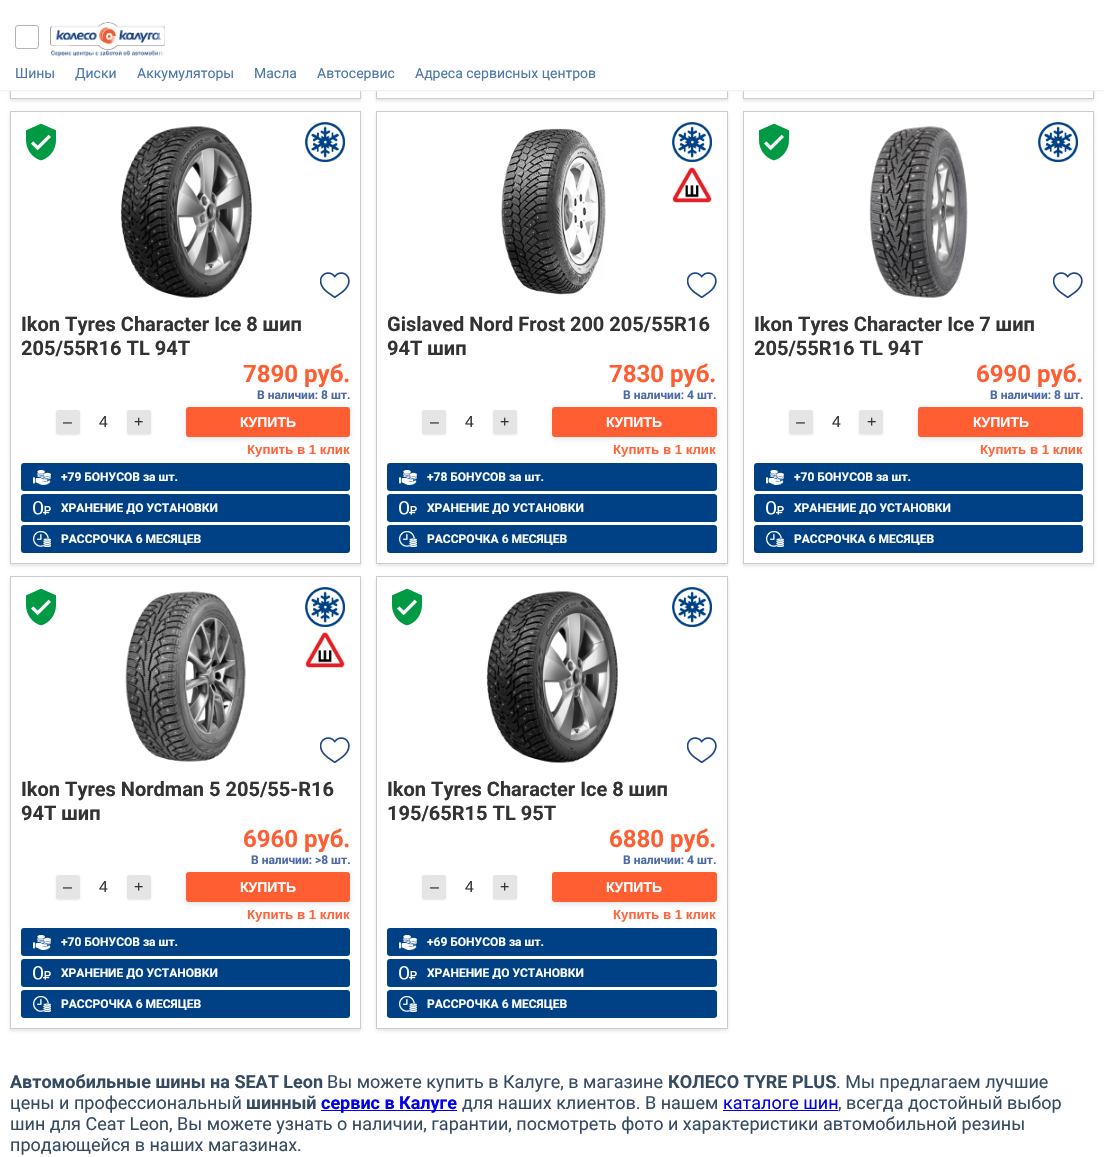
#include "include/core/SkBlurTypes.h"
#include "include/core/SkCanvas.h"
#include "include/core/SkData.h"
#include "include/core/SkFont.h"
#include "include/core/SkFontMgr.h"
#include "include/core/SkImage.h"
#include "include/core/SkMaskFilter.h"
#include "include/core/SkPaint.h"
#include "include/core/SkPathBuilder.h"
#include "include/core/SkTextBlob.h"
#include "include/effects/SkDashPathEffect.h"
#include "include/effects/SkGradientShader.h"
#include "include/utils/SkParsePath.h"

extern sk_sp<SkFontMgr> fontMgr;

void draw(SkCanvas* canvas) {
    SkPaint p;
    p.setAntiAlias(true);
    auto font = [&](const char* family, int weight, float size, bool italic = false) {
        SkFontStyle style(weight, SkFontStyle::kNormal_Width,
            italic ? SkFontStyle::kItalic_Slant : SkFontStyle::kUpright_Slant);
        SkFont result(fontMgr->matchFamilyStyle(family, style), size);
        result.setSubpixel(true);
        return result;
    };
    auto drawPhoto = [&](const char* path, float l, float t, float r, float b) {
        auto image = SkImages::DeferredFromEncodedData(SkData::MakeFromFileName(path));
        canvas->drawImageRect(image, SkRect::MakeLTRB(l, t, r, b), SkSamplingOptions());
    };
    canvas->clear(0xFFFFFFFF);
    canvas->save();
    canvas->clipPath(SkPathBuilder(SkPathFillType::kEvenOdd).moveTo(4, 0).lineTo(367, 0).lineTo(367, 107).lineTo(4, 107).close().moveTo(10, -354).lineTo(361, -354).lineTo(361, 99).lineTo(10, 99).close().detach(), true);
    p.setColor(0x1A000000);
    p.setMaskFilter(SkMaskFilter::MakeBlur(kNormal_SkBlurStyle, 1.5f));
    canvas->drawRect(SkRect::MakeLTRB(10, -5, 361, 101), p);
    p.setMaskFilter(nullptr);
    canvas->restore();
    p.setStyle(SkPaint::kStroke_Style);
    p.setStrokeWidth(1);
    p.setColor(0xFFCCCCCC);
    canvas->drawRect(SkRect::MakeLTRB(10.5f, -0.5f, 360.5f, 98.5f), p);
    canvas->save();
    canvas->clipPath(SkPathBuilder(SkPathFillType::kEvenOdd).moveTo(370, 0).lineTo(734, 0).lineTo(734, 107).lineTo(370, 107).close().moveTo(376, -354).lineTo(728, -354).lineTo(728, 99).lineTo(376, 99).close().detach(), true);
    p.setStyle(SkPaint::kFill_Style);
    p.setColor(0x1A000000);
    p.setMaskFilter(SkMaskFilter::MakeBlur(kNormal_SkBlurStyle, 1.5f));
    canvas->drawRect(SkRect::MakeLTRB(376, -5, 728, 101), p);
    p.setMaskFilter(nullptr);
    canvas->restore();
    p.setStyle(SkPaint::kStroke_Style);
    p.setColor(0xFFCCCCCC);
    canvas->drawRect(SkRect::MakeLTRB(376.5f, -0.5f, 727.5f, 98.5f), p);
    canvas->save();
    canvas->clipPath(SkPathBuilder(SkPathFillType::kEvenOdd).moveTo(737, 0).lineTo(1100, 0).lineTo(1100, 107).lineTo(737, 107).close().moveTo(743, -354).lineTo(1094, -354).lineTo(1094, 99).lineTo(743, 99).close().detach(), true);
    p.setStyle(SkPaint::kFill_Style);
    p.setColor(0x1A000000);
    p.setMaskFilter(SkMaskFilter::MakeBlur(kNormal_SkBlurStyle, 1.5f));
    canvas->drawRect(SkRect::MakeLTRB(743, -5, 1094, 101), p);
    p.setMaskFilter(nullptr);
    canvas->restore();
    p.setStyle(SkPaint::kStroke_Style);
    p.setColor(0xFFCCCCCC);
    canvas->drawRect(SkRect::MakeLTRB(743.5f, -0.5f, 1093.5f, 98.5f), p);
    p.setStyle(SkPaint::kFill_Style);
    p.setColor(0xFFF1F2F3);
    p.setMaskFilter(SkMaskFilter::MakeBlur(kNormal_SkBlurStyle, 0.5f));
    canvas->drawRect(SkRect::MakeLTRB(-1, -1, 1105, 91), p);
    p.setMaskFilter(nullptr);
    p.setColor(0xFFFFFFFF);
    canvas->drawRect(SkRect::MakeLTRB(0, 0, 1104, 90), p);
    p.setStyle(SkPaint::kStroke_Style);
    p.setColor(0xFFB3B4B3);
    canvas->drawRoundRect(SkRect::MakeLTRB(15.5f, 25.5f, 38.5f, 48.5f), 2.5f, 2.5f, p);
    drawPhoto("media/1.png", 50, 21, 165, 57);
    auto font1 = font("Roboto", 400, 14);
    p.setStyle(SkPaint::kFill_Style);
    p.setColor(0xFF4E77A8);
    {
        const struct { const char* s; float x, y; } items[] = {
            {"Шины", 15, 78},
            {"Диски", 75, 78},
            {"Аккумуляторы", 137, 78},
            {"Масла", 254, 78},
            {"Автосервис", 317, 78},
            {"Адреса сервисных центров", 415, 78},
        };
        for (auto [s, x, y] : items) {
            canvas->drawString(s, x, y, font1, p);
        }
    }
    canvas->save();
    canvas->clipPath(SkPathBuilder(SkPathFillType::kEvenOdd).moveTo(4, 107).lineTo(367, 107).lineTo(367, 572).lineTo(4, 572).close().moveTo(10, 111).lineTo(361, 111).lineTo(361, 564).lineTo(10, 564).close().detach(), true);
    p.setColor(0x1A000000);
    p.setMaskFilter(SkMaskFilter::MakeBlur(kNormal_SkBlurStyle, 1.5f));
    canvas->drawRect(SkRect::MakeLTRB(10, 113, 361, 566), p);
    p.setMaskFilter(nullptr);
    canvas->restore();
    p.setStyle(SkPaint::kStroke_Style);
    p.setColor(0xFFCCCCCC);
    canvas->drawRect(SkRect::MakeLTRB(10.5f, 111.5f, 360.5f, 563.5f), p);
    drawPhoto("media/2.png", 26, 123, 56, 161);
    drawPhoto("media/3.png", 120, 126, 252, 298);
    drawPhoto("media/4.png", 305, 122, 345, 162);
    drawPhoto("media/5.png", 320, 272, 350, 298);
    auto font2 = font("Roboto", 700, 20);
    p.setStyle(SkPaint::kFill_Style);
    p.setColor(0xFF333333);
    canvas->drawString("Ikon Tyres Character Ice 8 шип", 21, 331, font2, p);
    canvas->drawString("205/55R16 TL 94T", 21, 355, font2, p);
    auto font3 = font("Roboto", 700, 24);
    p.setColor(0xFFFF5D32);
    canvas->drawString("7890 руб.", 243, 382, font3, p);
    auto font4 = font("Roboto", 700, 12);
    p.setColor(0xFF4B6AA6);
    canvas->drawString("В наличии: 8 шт.", 257, 399, font4, p);
    canvas->save();
    canvas->clipPath(SkPathBuilder(SkPathFillType::kEvenOdd).moveTo(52, 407).lineTo(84, 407).lineTo(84, 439).lineTo(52, 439).close().moveTo(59, 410).lineTo(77, 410).cubicTo(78.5f, 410, 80, 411.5f, 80, 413).lineTo(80, 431).cubicTo(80, 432.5f, 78.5f, 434, 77, 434).lineTo(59, 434).cubicTo(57.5f, 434, 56, 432.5f, 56, 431).lineTo(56, 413).cubicTo(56, 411.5f, 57.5f, 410, 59, 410).close().detach(), true);
    p.setColor(0x1A000000);
    p.setMaskFilter(SkMaskFilter::MakeBlur(kNormal_SkBlurStyle, 1));
    canvas->drawRoundRect(SkRect::MakeLTRB(56, 411, 80, 435), 3, 3, p);
    p.setMaskFilter(nullptr);
    canvas->restore();
    canvas->drawRoundRect(SkRect::MakeLTRB(56, 410, 80, 434), 3, 3, p);
    auto font5 = font("Liberation Sans", 400, 16);
    p.setColor(0xFF333333);
    canvas->drawString("–", 63, 427, font5, p);
    canvas->drawString("4", 99, 427, font5, p);
    canvas->save();
    canvas->clipPath(SkPathBuilder(SkPathFillType::kEvenOdd).moveTo(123, 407).lineTo(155, 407).lineTo(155, 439).lineTo(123, 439).close().moveTo(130, 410).lineTo(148, 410).cubicTo(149.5f, 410, 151, 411.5f, 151, 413).lineTo(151, 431).cubicTo(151, 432.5f, 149.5f, 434, 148, 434).lineTo(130, 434).cubicTo(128.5f, 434, 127, 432.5f, 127, 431).lineTo(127, 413).cubicTo(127, 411.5f, 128.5f, 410, 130, 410).close().detach(), true);
    p.setColor(0x1A000000);
    p.setMaskFilter(SkMaskFilter::MakeBlur(kNormal_SkBlurStyle, 1));
    canvas->drawRoundRect(SkRect::MakeLTRB(127, 411, 151, 435), 3, 3, p);
    p.setMaskFilter(nullptr);
    canvas->restore();
    canvas->drawRoundRect(SkRect::MakeLTRB(127, 410, 151, 434), 3, 3, p);
    p.setColor(0xFF333333);
    canvas->drawString("+", 134, 427, font5, p);
    p.setColor(0x1A000000);
    p.setMaskFilter(SkMaskFilter::MakeBlur(kNormal_SkBlurStyle, 2.5f));
    canvas->drawRoundRect(SkRect::MakeLTRB(186, 409, 350, 439), 3, 3, p);
    p.setMaskFilter(nullptr);
    p.setColor(0xFFFF5D32);
    canvas->drawRoundRect(SkRect::MakeLTRB(186, 407, 350, 437), 3, 3, p);
    auto font6 = font("Liberation Sans", 700, 14);
    p.setColor(0xFFFFFFFF);
    canvas->drawString("КУПИТЬ", 240, 427, font6, p);
    auto font7 = font("Liberation Sans", 700, 13.25f);
    p.setColor(0xFFFF653C);
    canvas->drawString("Купить в 1 клик", 247, 454, font7, p);
    p.setColor(0xFF004185);
    canvas->drawRoundRect(SkRect::MakeLTRB(21, 463, 350, 491), 3, 3, p);
    drawPhoto("media/6.png", 33, 470, 51, 485);
    p.setColor(0xFFFFFFFF);
    canvas->drawString("+79 БОНУСОВ за шт.", 61, 481, font4, p);
    p.setColor(0xFF004185);
    canvas->drawRoundRect(SkRect::MakeLTRB(21, 494, 350, 522), 3, 3, p);
    drawPhoto("media/7.png", 33, 501, 51, 515);
    p.setColor(0xFFFFFFFF);
    canvas->drawString("ХРАНЕНИЕ ДО УСТАНОВКИ", 61, 512, font4, p);
    p.setColor(0xFF004185);
    canvas->drawRoundRect(SkRect::MakeLTRB(21, 525, 350, 553), 3, 3, p);
    drawPhoto("media/8.png", 33, 531, 51, 547);
    p.setColor(0xFFFFFFFF);
    canvas->drawString("РАССРОЧКА 6 МЕСЯЦЕВ", 61, 543, font4, p);
    canvas->save();
    canvas->clipPath(SkPathBuilder(SkPathFillType::kEvenOdd).moveTo(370, 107).lineTo(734, 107).lineTo(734, 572).lineTo(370, 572).close().moveTo(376, 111).lineTo(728, 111).lineTo(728, 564).lineTo(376, 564).close().detach(), true);
    p.setColor(0x1A000000);
    p.setMaskFilter(SkMaskFilter::MakeBlur(kNormal_SkBlurStyle, 1.5f));
    canvas->drawRect(SkRect::MakeLTRB(376, 113, 728, 566), p);
    p.setMaskFilter(nullptr);
    canvas->restore();
    p.setStyle(SkPaint::kStroke_Style);
    p.setColor(0xFFCCCCCC);
    canvas->drawRect(SkRect::MakeLTRB(376.5f, 111.5f, 727.5f, 563.5f), p);
    drawPhoto("media/9.png", 501, 128, 606, 295);
    drawPhoto("media/10.png", 672, 122, 712, 162);
    drawPhoto("media/11.png", 672, 167, 712, 203);
    drawPhoto("media/5.png", 687, 272, 717, 298);
    p.setStyle(SkPaint::kFill_Style);
    p.setColor(0xFF333333);
    canvas->drawString("Gislaved Nord Frost 200 205/55R16", 387, 331, font2, p);
    canvas->drawString("94T шип", 387, 355, font2, p);
    p.setColor(0xFFFF5D32);
    canvas->drawString("7830 руб.", 609, 382, font3, p);
    p.setColor(0xFF4B6AA6);
    canvas->drawString("В наличии: 4 шт.", 623, 399, font4, p);
    canvas->save();
    canvas->clipPath(SkPathBuilder(SkPathFillType::kEvenOdd).moveTo(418, 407).lineTo(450, 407).lineTo(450, 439).lineTo(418, 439).close().moveTo(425, 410).lineTo(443, 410).cubicTo(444.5f, 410, 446, 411.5f, 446, 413).lineTo(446, 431).cubicTo(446, 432.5f, 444.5f, 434, 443, 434).lineTo(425, 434).cubicTo(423.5f, 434, 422, 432.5f, 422, 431).lineTo(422, 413).cubicTo(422, 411.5f, 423.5f, 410, 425, 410).close().detach(), true);
    p.setColor(0x1A000000);
    p.setMaskFilter(SkMaskFilter::MakeBlur(kNormal_SkBlurStyle, 1));
    canvas->drawRoundRect(SkRect::MakeLTRB(422, 411, 446, 435), 3, 3, p);
    p.setMaskFilter(nullptr);
    canvas->restore();
    canvas->drawRoundRect(SkRect::MakeLTRB(422, 410, 446, 434), 3, 3, p);
    p.setColor(0xFF333333);
    canvas->drawString("–", 430, 427, font5, p);
    canvas->drawString("4", 465, 427, font5, p);
    canvas->save();
    canvas->clipPath(SkPathBuilder(SkPathFillType::kEvenOdd).moveTo(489, 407).lineTo(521, 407).lineTo(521, 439).lineTo(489, 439).close().moveTo(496, 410).lineTo(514, 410).cubicTo(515.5f, 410, 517, 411.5f, 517, 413).lineTo(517, 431).cubicTo(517, 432.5f, 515.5f, 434, 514, 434).lineTo(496, 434).cubicTo(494.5f, 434, 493, 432.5f, 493, 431).lineTo(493, 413).cubicTo(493, 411.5f, 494.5f, 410, 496, 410).close().detach(), true);
    p.setColor(0x1A000000);
    p.setMaskFilter(SkMaskFilter::MakeBlur(kNormal_SkBlurStyle, 1));
    canvas->drawRoundRect(SkRect::MakeLTRB(493, 411, 517, 435), 3, 3, p);
    p.setMaskFilter(nullptr);
    canvas->restore();
    canvas->drawRoundRect(SkRect::MakeLTRB(493, 410, 517, 434), 3, 3, p);
    p.setColor(0xFF333333);
    canvas->drawString("+", 500, 427, font5, p);
    p.setColor(0x1A000000);
    p.setMaskFilter(SkMaskFilter::MakeBlur(kNormal_SkBlurStyle, 2.5f));
    canvas->drawRoundRect(SkRect::MakeLTRB(552, 409, 717, 439), 3, 3, p);
    p.setMaskFilter(nullptr);
    p.setColor(0xFFFF5D32);
    canvas->drawRoundRect(SkRect::MakeLTRB(552, 407, 717, 437), 3, 3, p);
    p.setColor(0xFFFFFFFF);
    canvas->drawString("КУПИТЬ", 606, 427, font6, p);
    p.setColor(0xFFFF653C);
    canvas->drawString("Купить в 1 клик", 613, 454, font7, p);
    p.setColor(0xFF004185);
    canvas->drawRoundRect(SkRect::MakeLTRB(387, 463, 717, 491), 3, 3, p);
    drawPhoto("media/6.png", 399, 470, 417, 485);
    p.setColor(0xFFFFFFFF);
    canvas->drawString("+78 БОНУСОВ за шт.", 427, 481, font4, p);
    p.setColor(0xFF004185);
    canvas->drawRoundRect(SkRect::MakeLTRB(387, 494, 717, 522), 3, 3, p);
    drawPhoto("media/7.png", 399, 501, 417, 515);
    p.setColor(0xFFFFFFFF);
    canvas->drawString("ХРАНЕНИЕ ДО УСТАНОВКИ", 427, 512, font4, p);
    p.setColor(0xFF004185);
    canvas->drawRoundRect(SkRect::MakeLTRB(387, 525, 717, 553), 3, 3, p);
    drawPhoto("media/8.png", 399, 531, 417, 547);
    p.setColor(0xFFFFFFFF);
    canvas->drawString("РАССРОЧКА 6 МЕСЯЦЕВ", 427, 543, font4, p);
    canvas->save();
    canvas->clipPath(SkPathBuilder(SkPathFillType::kEvenOdd).moveTo(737, 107).lineTo(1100, 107).lineTo(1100, 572).lineTo(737, 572).close().moveTo(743, 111).lineTo(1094, 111).lineTo(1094, 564).lineTo(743, 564).close().detach(), true);
    p.setColor(0x1A000000);
    p.setMaskFilter(SkMaskFilter::MakeBlur(kNormal_SkBlurStyle, 1.5f));
    canvas->drawRect(SkRect::MakeLTRB(743, 113, 1094, 566), p);
    p.setMaskFilter(nullptr);
    canvas->restore();
    p.setStyle(SkPaint::kStroke_Style);
    p.setColor(0xFFCCCCCC);
    canvas->drawRect(SkRect::MakeLTRB(743.5f, 111.5f, 1093.5f, 563.5f), p);
    drawPhoto("media/2.png", 759, 123, 789, 161);
    drawPhoto("media/12.png", 869, 126, 968, 298);
    drawPhoto("media/13.png", 1038, 122, 1078, 162);
    drawPhoto("media/5.png", 1053, 272, 1083, 298);
    p.setStyle(SkPaint::kFill_Style);
    p.setColor(0xFF333333);
    canvas->drawString("Ikon Tyres Character Ice 7 шип", 754, 331, font2, p);
    canvas->drawString("205/55R16 TL 94T", 754, 355, font2, p);
    p.setColor(0xFFFF5D32);
    canvas->drawString("6990 руб.", 976, 382, font3, p);
    p.setColor(0xFF4B6AA6);
    canvas->drawString("В наличии: 8 шт.", 990, 399, font4, p);
    canvas->save();
    canvas->clipPath(SkPathBuilder(SkPathFillType::kEvenOdd).moveTo(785, 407).lineTo(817, 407).lineTo(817, 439).lineTo(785, 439).close().moveTo(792, 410).lineTo(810, 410).cubicTo(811.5f, 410, 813, 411.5f, 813, 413).lineTo(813, 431).cubicTo(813, 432.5f, 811.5f, 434, 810, 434).lineTo(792, 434).cubicTo(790.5f, 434, 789, 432.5f, 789, 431).lineTo(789, 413).cubicTo(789, 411.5f, 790.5f, 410, 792, 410).close().detach(), true);
    p.setColor(0x1A000000);
    p.setMaskFilter(SkMaskFilter::MakeBlur(kNormal_SkBlurStyle, 1));
    canvas->drawRoundRect(SkRect::MakeLTRB(789, 411, 813, 435), 3, 3, p);
    p.setMaskFilter(nullptr);
    canvas->restore();
    canvas->drawRoundRect(SkRect::MakeLTRB(789, 410, 813, 434), 3, 3, p);
    p.setColor(0xFF333333);
    canvas->drawString("–", 796, 427, font5, p);
    canvas->drawString("4", 832, 427, font5, p);
    canvas->save();
    canvas->clipPath(SkPathBuilder(SkPathFillType::kEvenOdd).moveTo(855, 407).lineTo(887, 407).lineTo(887, 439).lineTo(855, 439).close().moveTo(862, 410).lineTo(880, 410).cubicTo(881.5f, 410, 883, 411.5f, 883, 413).lineTo(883, 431).cubicTo(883, 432.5f, 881.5f, 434, 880, 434).lineTo(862, 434).cubicTo(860.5f, 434, 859, 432.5f, 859, 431).lineTo(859, 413).cubicTo(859, 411.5f, 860.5f, 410, 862, 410).close().detach(), true);
    p.setColor(0x1A000000);
    p.setMaskFilter(SkMaskFilter::MakeBlur(kNormal_SkBlurStyle, 1));
    canvas->drawRoundRect(SkRect::MakeLTRB(859, 411, 883, 435), 3, 3, p);
    p.setMaskFilter(nullptr);
    canvas->restore();
    canvas->drawRoundRect(SkRect::MakeLTRB(859, 410, 883, 434), 3, 3, p);
    p.setColor(0xFF333333);
    canvas->drawString("+", 867, 427, font5, p);
    p.setColor(0x1A000000);
    p.setMaskFilter(SkMaskFilter::MakeBlur(kNormal_SkBlurStyle, 2.5f));
    canvas->drawRoundRect(SkRect::MakeLTRB(918, 409, 1083, 439), 3, 3, p);
    p.setMaskFilter(nullptr);
    p.setColor(0xFFFF5D32);
    canvas->drawRoundRect(SkRect::MakeLTRB(918, 407, 1083, 437), 3, 3, p);
    p.setColor(0xFFFFFFFF);
    canvas->drawString("КУПИТЬ", 973, 427, font6, p);
    p.setColor(0xFFFF653C);
    canvas->drawString("Купить в 1 клик", 980, 454, font7, p);
    p.setColor(0xFF004185);
    canvas->drawRoundRect(SkRect::MakeLTRB(754, 463, 1083, 491), 3, 3, p);
    drawPhoto("media/6.png", 766, 470, 784, 485);
    p.setColor(0xFFFFFFFF);
    canvas->drawString("+70 БОНУСОВ за шт.", 794, 481, font4, p);
    p.setColor(0xFF004185);
    canvas->drawRoundRect(SkRect::MakeLTRB(754, 494, 1083, 522), 3, 3, p);
    drawPhoto("media/7.png", 766, 501, 784, 515);
    p.setColor(0xFFFFFFFF);
    canvas->drawString("ХРАНЕНИЕ ДО УСТАНОВКИ", 794, 512, font4, p);
    p.setColor(0xFF004185);
    canvas->drawRoundRect(SkRect::MakeLTRB(754, 525, 1083, 553), 3, 3, p);
    drawPhoto("media/8.png", 766, 531, 784, 547);
    p.setColor(0xFFFFFFFF);
    canvas->drawString("РАССРОЧКА 6 МЕСЯЦЕВ", 794, 543, font4, p);
    canvas->save();
    canvas->clipPath(SkPathBuilder(SkPathFillType::kEvenOdd).moveTo(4, 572).lineTo(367, 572).lineTo(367, 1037).lineTo(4, 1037).close().moveTo(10, 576).lineTo(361, 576).lineTo(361, 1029).lineTo(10, 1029).close().detach(), true);
    p.setColor(0x1A000000);
    p.setMaskFilter(SkMaskFilter::MakeBlur(kNormal_SkBlurStyle, 1.5f));
    canvas->drawRect(SkRect::MakeLTRB(10, 578, 361, 1031), p);
    p.setMaskFilter(nullptr);
    canvas->restore();
    p.setStyle(SkPaint::kStroke_Style);
    p.setColor(0xFFCCCCCC);
    canvas->drawRect(SkRect::MakeLTRB(10.5f, 576.5f, 360.5f, 1028.5f), p);
    drawPhoto("media/2.png", 26, 588, 56, 626);
    drawPhoto("media/14.png", 125, 591, 246, 762);
    drawPhoto("media/4.png", 305, 587, 345, 627);
    drawPhoto("media/11.png", 305, 632, 345, 668);
    drawPhoto("media/5.png", 320, 737, 350, 763);
    p.setStyle(SkPaint::kFill_Style);
    p.setColor(0xFF333333);
    canvas->drawString("Ikon Tyres Nordman 5 205/55-R16", 21, 796, font2, p);
    canvas->drawString("94T шип", 21, 820, font2, p);
    p.setColor(0xFFFF5D32);
    canvas->drawString("6960 руб.", 243, 847, font3, p);
    p.setColor(0xFF4B6AA6);
    canvas->drawString("В наличии: >8 шт.", 251, 864, font4, p);
    canvas->save();
    canvas->clipPath(SkPathBuilder(SkPathFillType::kEvenOdd).moveTo(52, 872).lineTo(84, 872).lineTo(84, 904).lineTo(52, 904).close().moveTo(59, 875).lineTo(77, 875).cubicTo(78.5f, 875, 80, 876.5f, 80, 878).lineTo(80, 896).cubicTo(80, 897.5f, 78.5f, 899, 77, 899).lineTo(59, 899).cubicTo(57.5f, 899, 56, 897.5f, 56, 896).lineTo(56, 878).cubicTo(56, 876.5f, 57.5f, 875, 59, 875).close().detach(), true);
    p.setColor(0x1A000000);
    p.setMaskFilter(SkMaskFilter::MakeBlur(kNormal_SkBlurStyle, 1));
    canvas->drawRoundRect(SkRect::MakeLTRB(56, 876, 80, 900), 3, 3, p);
    p.setMaskFilter(nullptr);
    canvas->restore();
    canvas->drawRoundRect(SkRect::MakeLTRB(56, 875, 80, 899), 3, 3, p);
    p.setColor(0xFF333333);
    canvas->drawString("–", 63, 892, font5, p);
    canvas->drawString("4", 99, 892, font5, p);
    canvas->save();
    canvas->clipPath(SkPathBuilder(SkPathFillType::kEvenOdd).moveTo(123, 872).lineTo(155, 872).lineTo(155, 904).lineTo(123, 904).close().moveTo(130, 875).lineTo(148, 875).cubicTo(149.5f, 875, 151, 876.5f, 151, 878).lineTo(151, 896).cubicTo(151, 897.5f, 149.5f, 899, 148, 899).lineTo(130, 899).cubicTo(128.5f, 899, 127, 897.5f, 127, 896).lineTo(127, 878).cubicTo(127, 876.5f, 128.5f, 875, 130, 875).close().detach(), true);
    p.setColor(0x1A000000);
    p.setMaskFilter(SkMaskFilter::MakeBlur(kNormal_SkBlurStyle, 1));
    canvas->drawRoundRect(SkRect::MakeLTRB(127, 876, 151, 900), 3, 3, p);
    p.setMaskFilter(nullptr);
    canvas->restore();
    canvas->drawRoundRect(SkRect::MakeLTRB(127, 875, 151, 899), 3, 3, p);
    p.setColor(0xFF333333);
    canvas->drawString("+", 134, 892, font5, p);
    p.setColor(0x1A000000);
    p.setMaskFilter(SkMaskFilter::MakeBlur(kNormal_SkBlurStyle, 2.5f));
    canvas->drawRoundRect(SkRect::MakeLTRB(186, 874, 350, 904), 3, 3, p);
    p.setMaskFilter(nullptr);
    p.setColor(0xFFFF5D32);
    canvas->drawRoundRect(SkRect::MakeLTRB(186, 872, 350, 902), 3, 3, p);
    p.setColor(0xFFFFFFFF);
    canvas->drawString("КУПИТЬ", 240, 892, font6, p);
    p.setColor(0xFFFF653C);
    canvas->drawString("Купить в 1 клик", 247, 919, font7, p);
    p.setColor(0xFF004185);
    canvas->drawRoundRect(SkRect::MakeLTRB(21, 928, 350, 956), 3, 3, p);
    drawPhoto("media/6.png", 33, 935, 51, 950);
    p.setColor(0xFFFFFFFF);
    canvas->drawString("+70 БОНУСОВ за шт.", 61, 946, font4, p);
    p.setColor(0xFF004185);
    canvas->drawRoundRect(SkRect::MakeLTRB(21, 959, 350, 987), 3, 3, p);
    drawPhoto("media/7.png", 33, 966, 51, 980);
    p.setColor(0xFFFFFFFF);
    canvas->drawString("ХРАНЕНИЕ ДО УСТАНОВКИ", 61, 977, font4, p);
    p.setColor(0xFF004185);
    canvas->drawRoundRect(SkRect::MakeLTRB(21, 990, 350, 1018), 3, 3, p);
    drawPhoto("media/8.png", 33, 996, 51, 1012);
    p.setColor(0xFFFFFFFF);
    canvas->drawString("РАССРОЧКА 6 МЕСЯЦЕВ", 61, 1008, font4, p);
    canvas->save();
    canvas->clipPath(SkPathBuilder(SkPathFillType::kEvenOdd).moveTo(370, 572).lineTo(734, 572).lineTo(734, 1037).lineTo(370, 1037).close().moveTo(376, 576).lineTo(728, 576).lineTo(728, 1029).lineTo(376, 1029).close().detach(), true);
    p.setColor(0x1A000000);
    p.setMaskFilter(SkMaskFilter::MakeBlur(kNormal_SkBlurStyle, 1.5f));
    canvas->drawRect(SkRect::MakeLTRB(376, 578, 728, 1031), p);
    p.setMaskFilter(nullptr);
    canvas->restore();
    p.setStyle(SkPaint::kStroke_Style);
    p.setColor(0xFFCCCCCC);
    canvas->drawRect(SkRect::MakeLTRB(376.5f, 576.5f, 727.5f, 1028.5f), p);
    drawPhoto("media/2.png", 392, 588, 422, 626);
    drawPhoto("media/3.png", 486, 591, 618, 763);
    drawPhoto("media/10.png", 672, 587, 712, 627);
    drawPhoto("media/5.png", 687, 737, 717, 763);
    p.setStyle(SkPaint::kFill_Style);
    p.setColor(0xFF333333);
    canvas->drawString("Ikon Tyres Character Ice 8 шип", 387, 796, font2, p);
    canvas->drawString("195/65R15 TL 95T", 387, 820, font2, p);
    p.setColor(0xFFFF5D32);
    canvas->drawString("6880 руб.", 609, 847, font3, p);
    p.setColor(0xFF4B6AA6);
    canvas->drawString("В наличии: 4 шт.", 623, 864, font4, p);
    canvas->save();
    canvas->clipPath(SkPathBuilder(SkPathFillType::kEvenOdd).moveTo(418, 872).lineTo(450, 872).lineTo(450, 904).lineTo(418, 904).close().moveTo(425, 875).lineTo(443, 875).cubicTo(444.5f, 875, 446, 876.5f, 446, 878).lineTo(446, 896).cubicTo(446, 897.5f, 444.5f, 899, 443, 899).lineTo(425, 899).cubicTo(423.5f, 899, 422, 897.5f, 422, 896).lineTo(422, 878).cubicTo(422, 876.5f, 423.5f, 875, 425, 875).close().detach(), true);
    p.setColor(0x1A000000);
    p.setMaskFilter(SkMaskFilter::MakeBlur(kNormal_SkBlurStyle, 1));
    canvas->drawRoundRect(SkRect::MakeLTRB(422, 876, 446, 900), 3, 3, p);
    p.setMaskFilter(nullptr);
    canvas->restore();
    canvas->drawRoundRect(SkRect::MakeLTRB(422, 875, 446, 899), 3, 3, p);
    p.setColor(0xFF333333);
    canvas->drawString("–", 430, 892, font5, p);
    canvas->drawString("4", 465, 892, font5, p);
    canvas->save();
    canvas->clipPath(SkPathBuilder(SkPathFillType::kEvenOdd).moveTo(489, 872).lineTo(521, 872).lineTo(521, 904).lineTo(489, 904).close().moveTo(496, 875).lineTo(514, 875).cubicTo(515.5f, 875, 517, 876.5f, 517, 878).lineTo(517, 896).cubicTo(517, 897.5f, 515.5f, 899, 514, 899).lineTo(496, 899).cubicTo(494.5f, 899, 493, 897.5f, 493, 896).lineTo(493, 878).cubicTo(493, 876.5f, 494.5f, 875, 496, 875).close().detach(), true);
    p.setColor(0x1A000000);
    p.setMaskFilter(SkMaskFilter::MakeBlur(kNormal_SkBlurStyle, 1));
    canvas->drawRoundRect(SkRect::MakeLTRB(493, 876, 517, 900), 3, 3, p);
    p.setMaskFilter(nullptr);
    canvas->restore();
    canvas->drawRoundRect(SkRect::MakeLTRB(493, 875, 517, 899), 3, 3, p);
    p.setColor(0xFF333333);
    canvas->drawString("+", 500, 892, font5, p);
    p.setColor(0x1A000000);
    p.setMaskFilter(SkMaskFilter::MakeBlur(kNormal_SkBlurStyle, 2.5f));
    canvas->drawRoundRect(SkRect::MakeLTRB(552, 874, 717, 904), 3, 3, p);
    p.setMaskFilter(nullptr);
    p.setColor(0xFFFF5D32);
    canvas->drawRoundRect(SkRect::MakeLTRB(552, 872, 717, 902), 3, 3, p);
    p.setColor(0xFFFFFFFF);
    canvas->drawString("КУПИТЬ", 606, 892, font6, p);
    p.setColor(0xFFFF653C);
    canvas->drawString("Купить в 1 клик", 613, 919, font7, p);
    p.setColor(0xFF004185);
    canvas->drawRoundRect(SkRect::MakeLTRB(387, 928, 717, 956), 3, 3, p);
    drawPhoto("media/6.png", 399, 935, 417, 950);
    p.setColor(0xFFFFFFFF);
    canvas->drawString("+69 БОНУСОВ за шт.", 427, 946, font4, p);
    p.setColor(0xFF004185);
    canvas->drawRoundRect(SkRect::MakeLTRB(387, 959, 717, 987), 3, 3, p);
    drawPhoto("media/7.png", 399, 966, 417, 980);
    p.setColor(0xFFFFFFFF);
    canvas->drawString("ХРАНЕНИЕ ДО УСТАНОВКИ", 427, 977, font4, p);
    p.setColor(0xFF004185);
    canvas->drawRoundRect(SkRect::MakeLTRB(387, 990, 717, 1018), 3, 3, p);
    drawPhoto("media/8.png", 399, 996, 417, 1012);
    p.setColor(0xFFFFFFFF);
    canvas->drawString("РАССРОЧКА 6 МЕСЯЦЕВ", 427, 1008, font4, p);
    auto font8 = font("Roboto", 700, 18);
    p.setColor(0xFF364A61);
    canvas->drawString("Автомобильные шины на SEAT Leon", 10, 1088, font8, p);
    auto font9 = font("Roboto", 400, 18);
    canvas->drawString("Вы можете купить в Калуге, в магазине", 327, 1088, font9, p);
    canvas->drawString("КОЛЕСО TYRE PLUS", 668, 1088, font8, p);
    canvas->drawString(". Мы предлагаем лучшие", 836, 1088, font9, p);
    canvas->drawString("цены и профессиональный", 10, 1109, font9, p);
    canvas->drawString("шинный", 246, 1109, font8, p);
    p.setColor(0xFF0000EE);
    canvas->drawRect(SkRect::MakeLTRB(321, 1110, 457, 1111), p);
    canvas->drawString("сервис в Калуге", 321, 1109, font8, p);
    p.setColor(0xFF364A61);
    canvas->drawString("для наших клиентов. В нашем", 462, 1109, font9, p);
    p.setColor(0xFF0000EE);
    canvas->drawString("каталоге шин", 723, 1109, font9, p);
    canvas->drawRect(SkRect::MakeLTRB(723, 1110, 838, 1111), p);
    p.setColor(0xFF364A61);
    {
        const struct { const char* s; float x, y; } items[] = {
            {", всегда достойный выбор", 838, 1109},
            {"шин для Сеат Leon, Вы можете узнать о наличии, гарантии, посмотреть фото и характеристики автомобильной резины", 10, 1130},
            {"продающейся в наших магазинах.", 10, 1151},
        };
        for (auto [s, x, y] : items) {
            canvas->drawString(s, x, y, font9, p);
        }
    }
}
